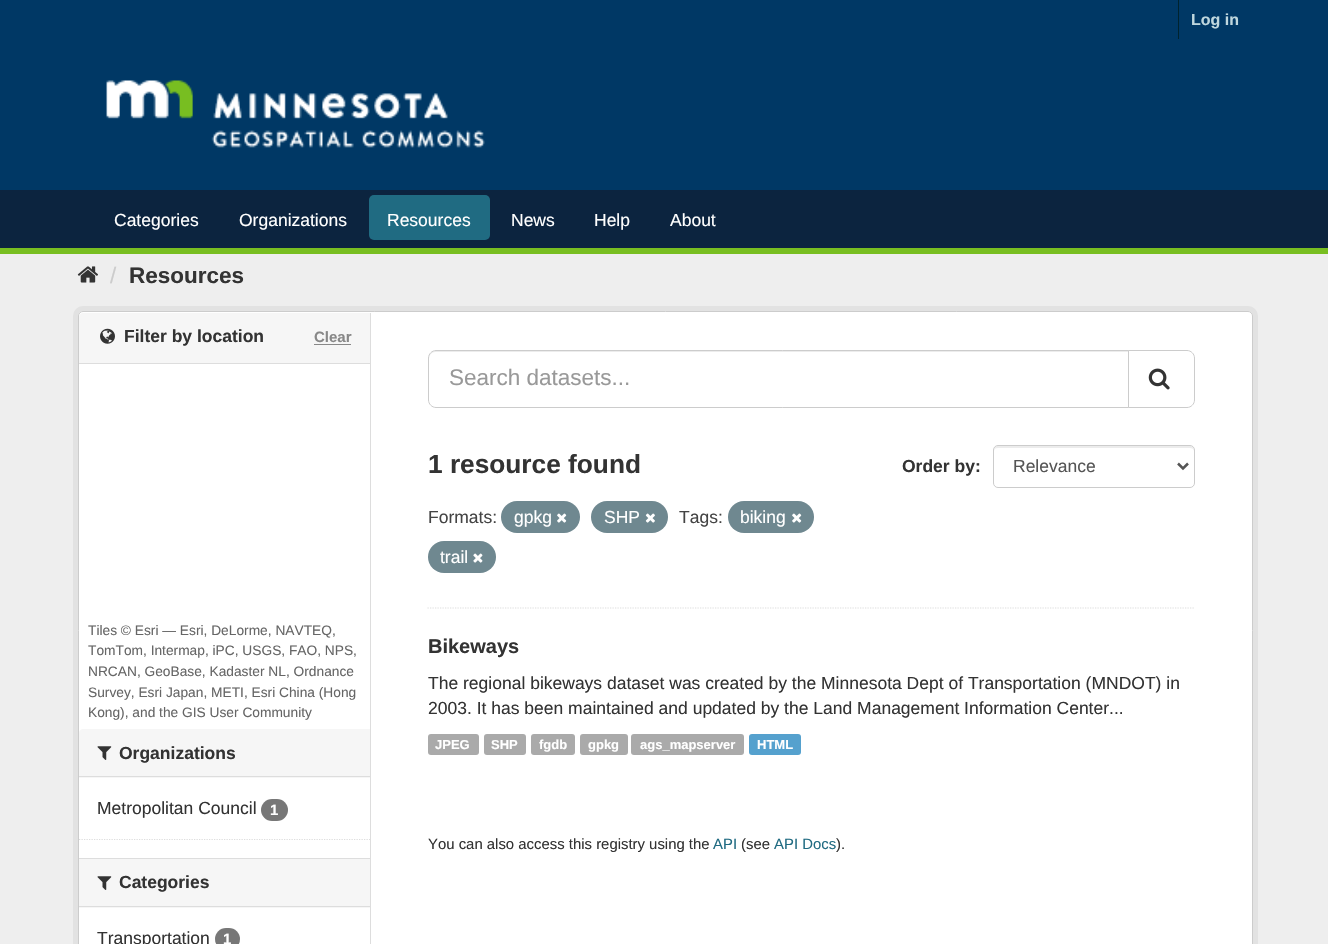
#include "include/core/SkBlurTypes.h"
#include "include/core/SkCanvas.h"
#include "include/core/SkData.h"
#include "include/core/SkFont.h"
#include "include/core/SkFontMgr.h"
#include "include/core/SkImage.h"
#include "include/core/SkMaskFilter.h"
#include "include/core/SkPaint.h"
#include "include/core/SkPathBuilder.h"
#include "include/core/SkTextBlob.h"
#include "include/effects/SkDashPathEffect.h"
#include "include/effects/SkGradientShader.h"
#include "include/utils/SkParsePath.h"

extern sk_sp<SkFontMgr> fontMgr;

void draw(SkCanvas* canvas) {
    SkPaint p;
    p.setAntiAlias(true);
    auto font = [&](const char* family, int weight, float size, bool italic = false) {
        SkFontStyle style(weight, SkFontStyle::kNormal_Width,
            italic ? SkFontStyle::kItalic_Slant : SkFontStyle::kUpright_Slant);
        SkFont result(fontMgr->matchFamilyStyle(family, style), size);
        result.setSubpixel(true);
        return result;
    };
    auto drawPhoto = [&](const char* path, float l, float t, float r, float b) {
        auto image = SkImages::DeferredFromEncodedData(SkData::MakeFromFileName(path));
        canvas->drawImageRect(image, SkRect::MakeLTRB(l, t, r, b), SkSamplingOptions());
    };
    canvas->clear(0xFF003865);
    p.setColor(0xFF00232E);
    canvas->drawRect(SkRect::MakeLTRB(1178, 0, 1179, 39), p);
    auto font1 = font("Liberation Sans", 700, 16);
    p.setColor(0xFFBFD7DE);
    canvas->drawString("Log in", 1191, 25, font1, p);
    drawPhoto("media/1.png", 106, 80, 485, 148);
    p.setColor(0xFF0C243F);
    canvas->drawRect(SkRect::MakeLTRB(0, 190, 1328, 248), p);
    p.setColor(0xFF78BE21);
    canvas->drawRect(SkRect::MakeLTRB(0, 248, 1328, 254), p);
    auto font2 = font("Liberation Sans", 400, 17.5f);
    p.setColor(0xFFFFFFFF);
    canvas->drawString("Categories", 114, 226, font2, p);
    canvas->drawString("Organizations", 239, 226, font2, p);
    p.setColor(0xFF206B82);
    canvas->drawRoundRect(SkRect::MakeLTRB(369, 195, 490, 240), 5, 5, p);
    p.setColor(0xFFFFFFFF);
    {
        const struct { const char* s; float x, y; } items[] = {
            {"Resources", 387, 226},
            {"News", 511, 226},
            {"Help", 594, 226},
            {"About", 670, 226},
        };
        for (auto [s, x, y] : items) {
            canvas->drawString(s, x, y, font2, p);
        }
    }
    p.setColor(0xFFEEEEEE);
    canvas->drawRect(SkRect::MakeLTRB(0, 254, 1328, 944), p);
    drawPhoto("media/2.png", 77, 266, 98, 283);
    auto font3 = font("Liberation Sans", 400, 22.5f);
    p.setColor(0xFFCCCCCC);
    canvas->drawString("/", 110, 283, font3, p);
    auto font4 = font("Liberation Sans", 700, 22.5f);
    p.setColor(0xFF333333);
    canvas->drawString("Resources", 129, 283, font4, p);
    p.setStyle(SkPaint::kStroke_Style);
    p.setStrokeWidth(5);
    p.setColor(0xFFE2E2E2);
    canvas->drawRoundRect(SkRect::MakeLTRB(75.5f, 308.5f, 1255.5f, 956.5f), 7.5f, 7.5f, p);
    p.setStyle(SkPaint::kFill_Style);
    p.setColor(0xFFFFFFFF);
    canvas->drawRoundRect(SkRect::MakeLTRB(78.5f, 311.5f, 1252.5f, 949.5f), 4.5f, 4.5f, p);
    p.setStyle(SkPaint::kStroke_Style);
    p.setStrokeWidth(1);
    p.setColor(0xFFCCCCCC);
    canvas->drawRoundRect(SkRect::MakeLTRB(78.5f, 311.5f, 1252.5f, 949.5f), 4.5f, 4.5f, p);
    p.setStyle(SkPaint::kFill_Style);
    p.setColor(0xFFF6F6F6);
    canvas->drawPath(SkPathBuilder().moveTo(83, 313).lineTo(370, 313).lineTo(370, 364).lineTo(79, 364).lineTo(79, 317).cubicTo(79, 315, 81, 313, 83, 313).close().detach(), p);
    p.setColor(0xFFDDDDDD);
    canvas->drawRect(SkRect::MakeLTRB(79, 363, 370, 364), p);
    drawPhoto("media/3.png", 100, 328, 115, 344);
    auto font5 = font("Liberation Sans", 700, 17.5f);
    p.setColor(0xFF333333);
    canvas->drawString("Filter by location", 124, 342, font5, p);
    auto font6 = font("Liberation Sans", 700, 15);
    p.setColor(0xFF888888);
    canvas->drawString("Clear", 314, 342, font6, p);
    canvas->drawRect(SkRect::MakeLTRB(314, 344, 351, 345), p);
    auto font7 = font("Liberation Sans", 400, 13.75f);
    p.setColor(0xFF666666);
    {
        const struct { const char* s; float x, y; } items[] = {
            {"Tiles © Esri — Esri, DeLorme, NAVTEQ,", 88, 635},
            {"TomTom, Intermap, iPC, USGS, FAO, NPS,", 88, 655},
            {"NRCAN, GeoBase, Kadaster NL, Ordnance", 88, 676},
            {"Survey, Esri Japan, METI, Esri China (Hong", 88, 697},
            {"Kong), and the GIS User Community", 88, 717},
        };
        for (auto [s, x, y] : items) {
            canvas->drawString(s, x, y, font7, p);
        }
    }
    p.setColor(0xFFF6F6F6);
    canvas->drawPath(SkPathBuilder().moveTo(83, 729).lineTo(370, 729).lineTo(370, 778).lineTo(79, 778).lineTo(79, 733).cubicTo(79, 731, 81, 729, 83, 729).close().detach(), p);
    p.setColor(0xFFDDDDDD);
    canvas->drawRect(SkRect::MakeLTRB(79, 776, 370, 777), p);
    drawPhoto("media/4.png", 97, 746, 112, 760);
    p.setColor(0xFF333333);
    canvas->drawString("Organizations", 119, 759, font5, p);
    canvas->drawString("Metropolitan Council", 97, 814, font2, p);
    p.setColor(0xFF777777);
    canvas->drawRoundRect(SkRect::MakeLTRB(261, 799, 288, 821), 11, 11, p);
    p.setColor(0xFFFFFFFF);
    canvas->drawString("1", 270, 815, font6, p);
    p.setStyle(SkPaint::kStroke_Style);
    p.setStrokeWidth(1.2f);
    p.setColor(0xFFDDDDDD);
    p.setPathEffect(SkDashPathEffect::Make({{1.25f, 1.25f}}, 0));
    canvas->drawPath(SkPathBuilder().moveTo(79, 839.5f).lineTo(370, 839.5f).detach(), p);
    p.setPathEffect(nullptr);
    p.setStyle(SkPaint::kFill_Style);
    {
        const struct { float l, t, r, b; SkColor color; } items[] = {
            {79, 859, 370, 908, 0xFFF6F6F6},
            {79, 858, 370, 859, 0xFFDDDDDD},
            {79, 906, 370, 907, 0xFFDDDDDD},
        };
        for (auto [l, t, r, b, color] : items) {
            p.setColor(color);
            canvas->drawRect(SkRect::MakeLTRB(l, t, r, b), p);
        }
    }
    drawPhoto("media/4.png", 97, 876, 112, 890);
    p.setColor(0xFF333333);
    canvas->drawString("Categories", 119, 888, font5, p);
    canvas->drawString("Transportation", 97, 944, font2, p);
    p.setColor(0xFF777777);
    canvas->drawRoundRect(SkRect::MakeLTRB(215, 928, 240, 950), 11, 11, p);
    p.setColor(0xFFFFFFFF);
    canvas->drawString("1", 223, 944, font6, p);
    p.setColor(0xFFDDDDDD);
    canvas->drawRect(SkRect::MakeLTRB(370, 313, 371, 944), p);
    p.setStyle(SkPaint::kStroke_Style);
    p.setPathEffect(SkDashPathEffect::Make({{1.25f, 1.25f}}, 0));
    canvas->drawPath(SkPathBuilder().moveTo(427.5f, 608).lineTo(1195, 608).detach(), p);
    p.setPathEffect(nullptr);
    p.setStyle(SkPaint::kFill_Style);
    p.setColor(0xFFECECEC);
    canvas->drawPath(SkPathBuilder().moveTo(435, 352).lineTo(1128, 352).lineTo(1128, 351).lineTo(435, 351).cubicTo(432, 351, 429, 354, 429, 357).lineTo(429, 359).cubicTo(429, 355, 432, 352, 435, 352).close().detach(), p);
    p.setStyle(SkPaint::kStroke_Style);
    p.setStrokeWidth(1);
    p.setColor(0xFFCCCCCC);
    canvas->drawPath(SkPathBuilder().moveTo(436, 350.5f).lineTo(1128.5f, 350.5f).lineTo(1128.5f, 407.5f).lineTo(436, 407.5f).cubicTo(432, 407.5f, 428.5f, 404, 428.5f, 400).lineTo(428.5f, 358).cubicTo(428.5f, 354, 432, 350.5f, 436, 350.5f).close().detach(), p);
    p.setStyle(SkPaint::kFill_Style);
    p.setColor(0xFF999999);
    canvas->drawString("Search datasets...", 449, 385, font3, p);
    p.setColor(0xFFFFFFFF);
    canvas->drawPath(SkPathBuilder().moveTo(1128.5f, 350.5f).lineTo(1187, 350.5f).cubicTo(1191, 350.5f, 1194.5f, 354, 1194.5f, 358).lineTo(1194.5f, 400).cubicTo(1194.5f, 404, 1191, 407.5f, 1187, 407.5f).lineTo(1128.5f, 407.5f).close().detach(), p);
    p.setStyle(SkPaint::kStroke_Style);
    p.setColor(0xFFCCCCCC);
    canvas->drawPath(SkPathBuilder().moveTo(1128.5f, 350.5f).lineTo(1187, 350.5f).cubicTo(1191, 350.5f, 1194.5f, 354, 1194.5f, 358).lineTo(1194.5f, 400).cubicTo(1194.5f, 404, 1191, 407.5f, 1187, 407.5f).lineTo(1128.5f, 407.5f).close().detach(), p);
    drawPhoto("media/5.png", 1148, 368, 1170, 390);
    auto font8 = font("Liberation Sans", 700, 26.25f);
    p.setStyle(SkPaint::kFill_Style);
    p.setColor(0xFF333333);
    canvas->drawString("1 resource found", 428, 473, font8, p);
    canvas->drawString("Order by:", 902, 472, font5, p);
    p.setColor(0xFFECECEC);
    canvas->drawPath(SkPathBuilder().moveTo(998, 448).lineTo(1190, 448).cubicTo(1192, 448, 1194, 449, 1194, 451).lineTo(1194, 450).cubicTo(1194, 448, 1192, 446, 1190, 446).lineTo(998, 446).cubicTo(996, 446, 994, 448, 994, 450).lineTo(994, 451).cubicTo(994, 449, 995, 448, 998, 448).close().detach(), p);
    p.setStyle(SkPaint::kStroke_Style);
    p.setColor(0xFFCCCCCC);
    canvas->drawRoundRect(SkRect::MakeLTRB(993.5f, 445.5f, 1194.5f, 487.5f), 4.5f, 4.5f, p);
    p.setStrokeWidth(2.5f);
    p.setColor(0xFF555555);
    canvas->drawPath(SkPathBuilder().moveTo(1178, 463.5f).lineTo(1183, 468.5f).lineTo(1188, 463.5f).detach(), p);
    p.setStyle(SkPaint::kFill_Style);
    canvas->drawString("Relevance", 1013, 472, font2, p);
    p.setColor(0xFF444444);
    canvas->drawString("Formats:", 428, 523, font2, p);
    p.setColor(0xFF6F8890);
    canvas->drawRoundRect(SkRect::MakeLTRB(501, 501, 580, 533), 16, 16, p);
    p.setColor(0xFFFFFFFF);
    canvas->drawString("gpkg", 514, 523, font2, p);
    drawPhoto("media/6.png", 557, 513, 567, 523);
    p.setColor(0xFF6F8890);
    canvas->drawRoundRect(SkRect::MakeLTRB(591, 501, 668, 533), 16, 16, p);
    p.setColor(0xFFFFFFFF);
    canvas->drawString("SHP", 604, 523, font2, p);
    drawPhoto("media/7.png", 645, 513, 655, 523);
    p.setColor(0xFF444444);
    canvas->drawString("Tags:", 679, 523, font2, p);
    p.setColor(0xFF6F8890);
    canvas->drawRoundRect(SkRect::MakeLTRB(728, 501, 814, 533), 16, 16, p);
    p.setColor(0xFFFFFFFF);
    canvas->drawString("biking", 740, 523, font2, p);
    drawPhoto("media/6.png", 792, 513, 802, 523);
    p.setColor(0xFF6F8890);
    canvas->drawRoundRect(SkRect::MakeLTRB(428, 541, 496, 573), 16, 16, p);
    p.setColor(0xFFFFFFFF);
    canvas->drawString("trail", 440, 563, font2, p);
    drawPhoto("media/8.png", 473, 553, 483, 563);
    auto font9 = font("Liberation Sans", 700, 20);
    p.setColor(0xFF333333);
    canvas->drawString("Bikeways", 428, 653, font9, p);
    canvas->drawString("The regional bikeways dataset was created by the Minnesota Dept of Transportation (MNDOT) in", 428, 689, font2, p);
    canvas->drawString("2003. It has been maintained and updated by the Land Management Information Center...", 428, 714, font2, p);
    p.setColor(0xFFAAAAAA);
    canvas->drawRoundRect(SkRect::MakeLTRB(428, 734, 479, 755), 3, 3, p);
    auto font10 = font("Liberation Sans", 700, 13);
    p.setColor(0xFFFFFFFF);
    canvas->drawString("JPEG", 435, 749, font10, p);
    p.setColor(0xFFAAAAAA);
    canvas->drawRoundRect(SkRect::MakeLTRB(484, 734, 526, 755), 3, 3, p);
    p.setColor(0xFFFFFFFF);
    canvas->drawString("SHP", 491, 749, font10, p);
    p.setColor(0xFFAAAAAA);
    canvas->drawRoundRect(SkRect::MakeLTRB(531, 734, 575, 755), 3, 3, p);
    p.setColor(0xFFFFFFFF);
    canvas->drawString("fgdb", 539, 749, font10, p);
    p.setColor(0xFFAAAAAA);
    canvas->drawRoundRect(SkRect::MakeLTRB(580, 734, 628, 755), 3, 3, p);
    p.setColor(0xFFFFFFFF);
    canvas->drawString("gpkg", 588, 749, font10, p);
    p.setColor(0xFFAAAAAA);
    canvas->drawRoundRect(SkRect::MakeLTRB(631, 734, 744, 755), 3, 3, p);
    p.setColor(0xFFFFFFFF);
    canvas->drawString("ags_mapserver", 640, 749, font10, p);
    p.setColor(0xFF55A1CE);
    canvas->drawRoundRect(SkRect::MakeLTRB(749, 734, 801, 755), 3, 3, p);
    p.setColor(0xFFFFFFFF);
    canvas->drawString("HTML", 757, 749, font10, p);
    auto font11 = font("Liberation Sans", 400, 14.9f);
    p.setColor(0xFF333333);
    canvas->drawString("You can also access this registry using the", 428, 849, font11, p);
    p.setColor(0xFF206B82);
    canvas->drawString("API", 713, 849, font11, p);
    p.setColor(0xFF333333);
    canvas->drawString("(see", 741, 849, font11, p);
    p.setColor(0xFF206B82);
    canvas->drawString("API Docs", 774, 849, font11, p);
    p.setColor(0xFF333333);
    canvas->drawString(").", 836, 849, font11, p);
}
